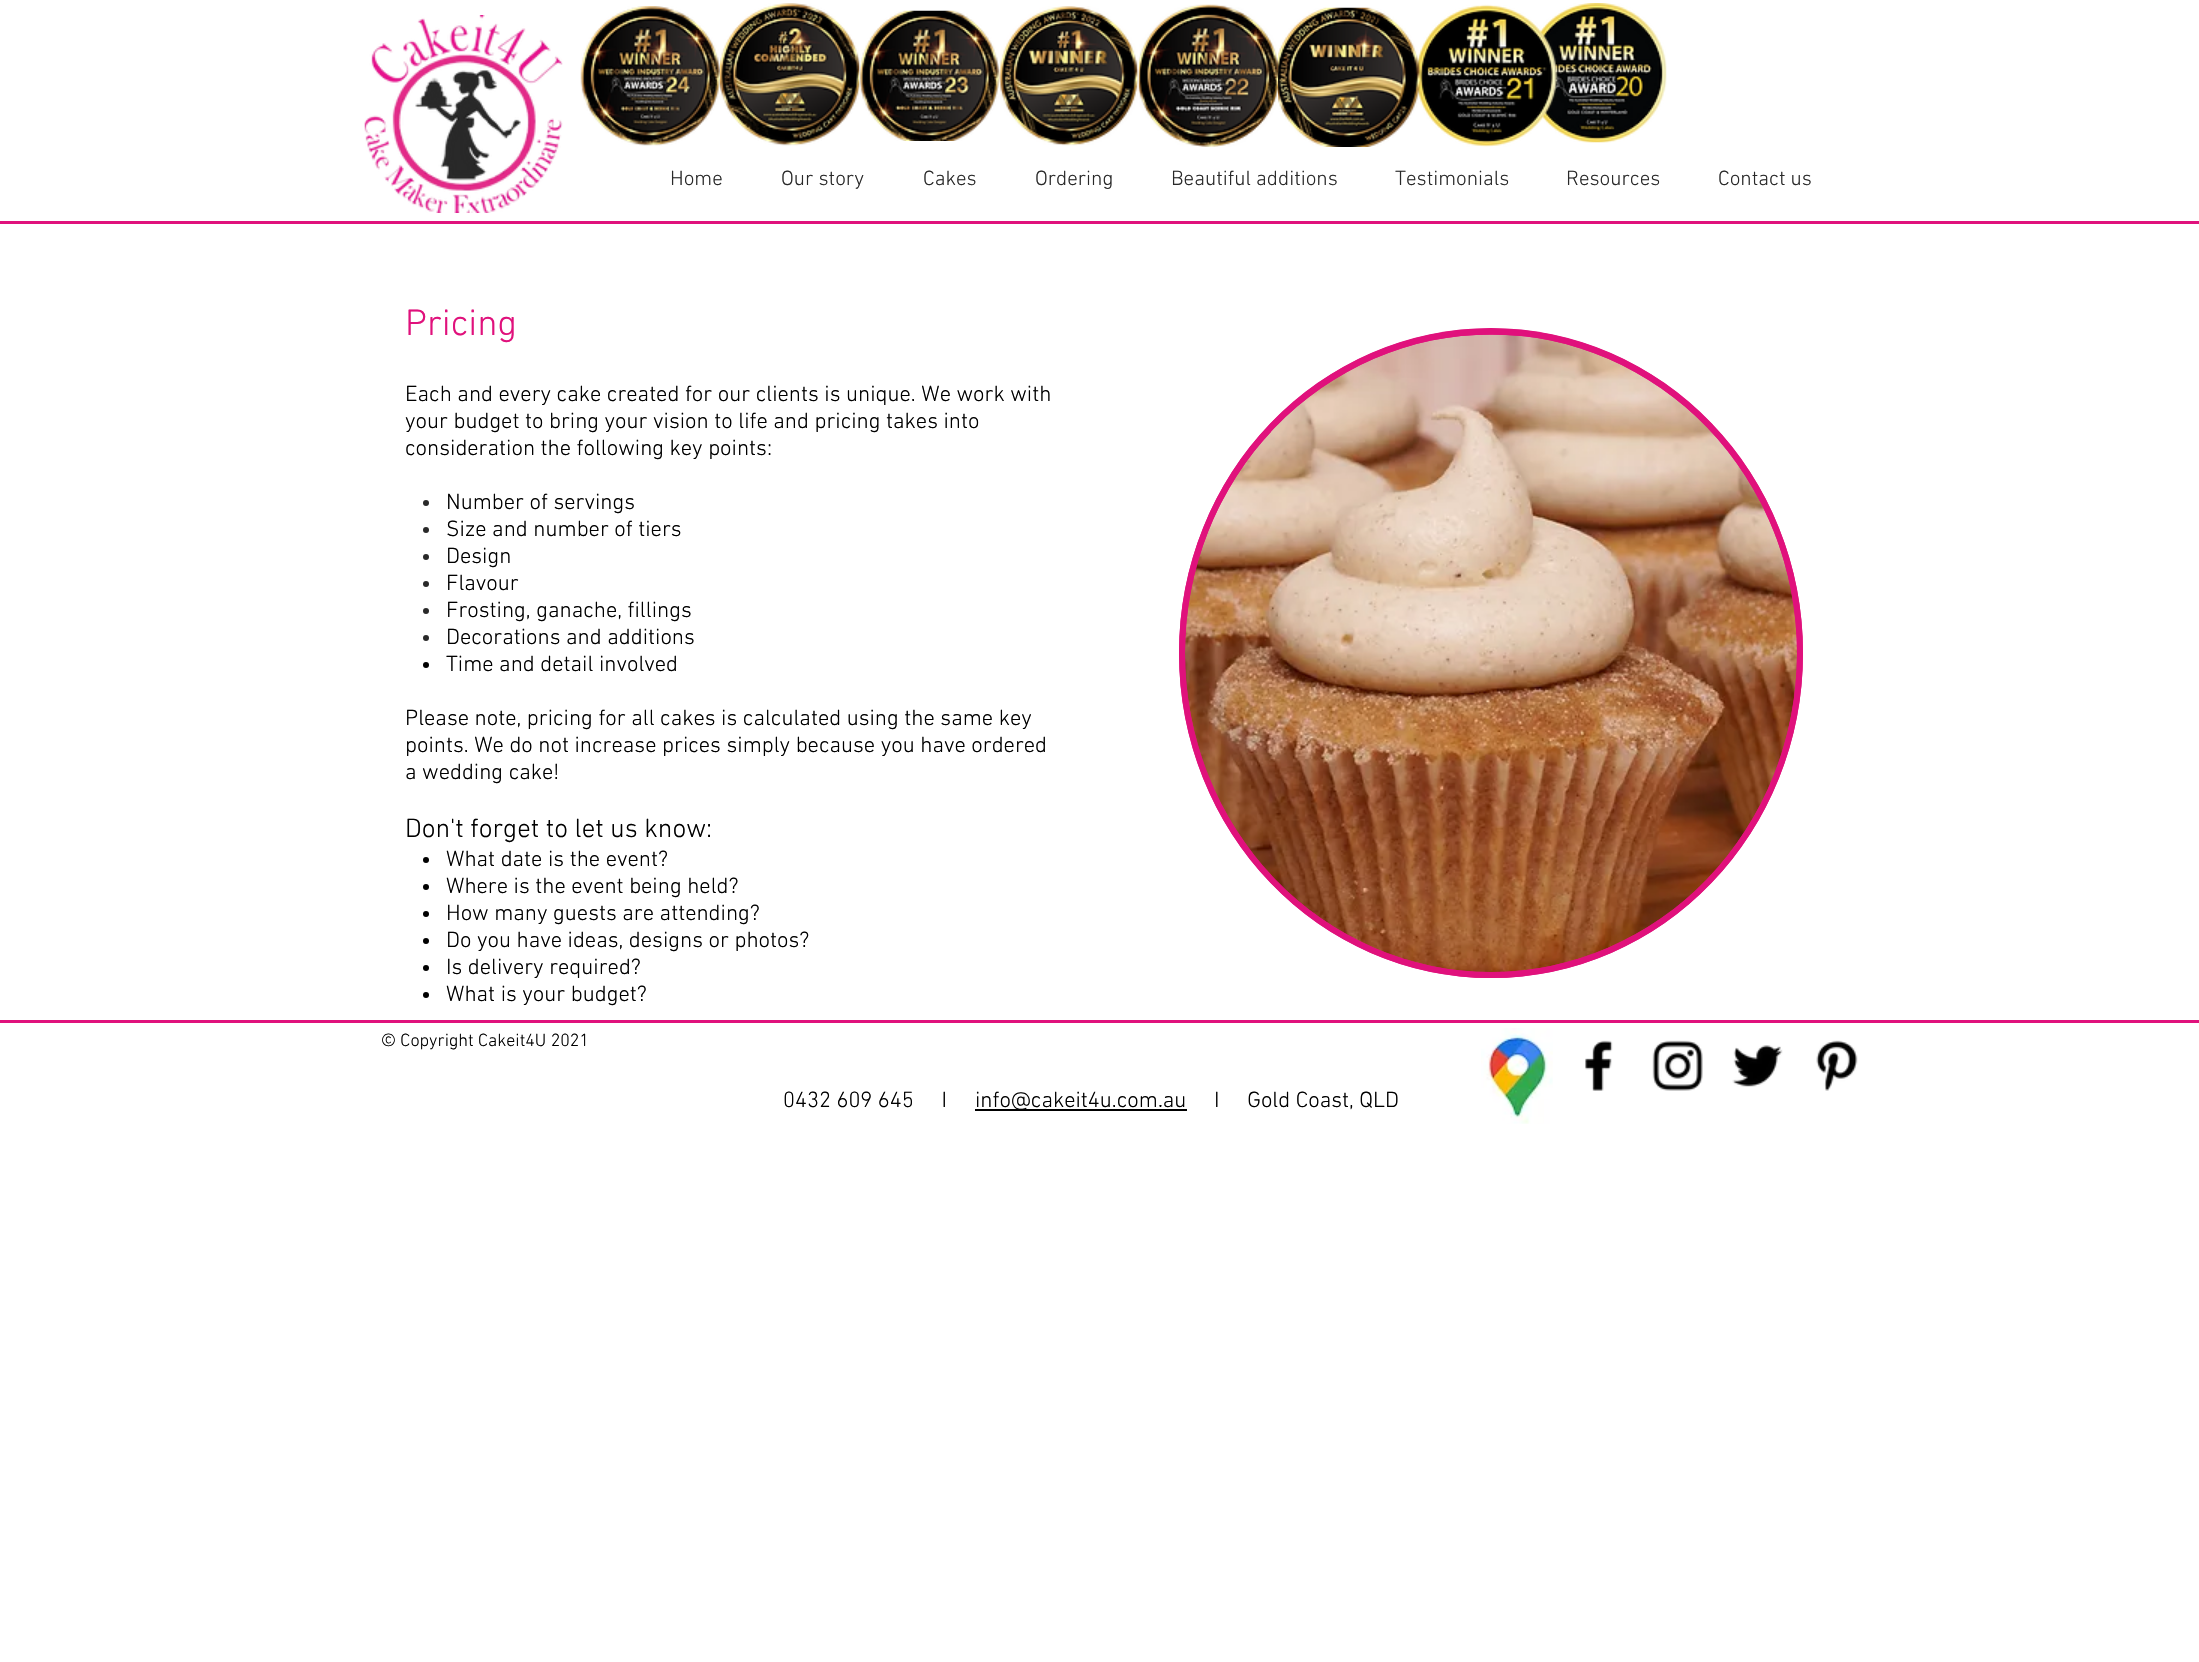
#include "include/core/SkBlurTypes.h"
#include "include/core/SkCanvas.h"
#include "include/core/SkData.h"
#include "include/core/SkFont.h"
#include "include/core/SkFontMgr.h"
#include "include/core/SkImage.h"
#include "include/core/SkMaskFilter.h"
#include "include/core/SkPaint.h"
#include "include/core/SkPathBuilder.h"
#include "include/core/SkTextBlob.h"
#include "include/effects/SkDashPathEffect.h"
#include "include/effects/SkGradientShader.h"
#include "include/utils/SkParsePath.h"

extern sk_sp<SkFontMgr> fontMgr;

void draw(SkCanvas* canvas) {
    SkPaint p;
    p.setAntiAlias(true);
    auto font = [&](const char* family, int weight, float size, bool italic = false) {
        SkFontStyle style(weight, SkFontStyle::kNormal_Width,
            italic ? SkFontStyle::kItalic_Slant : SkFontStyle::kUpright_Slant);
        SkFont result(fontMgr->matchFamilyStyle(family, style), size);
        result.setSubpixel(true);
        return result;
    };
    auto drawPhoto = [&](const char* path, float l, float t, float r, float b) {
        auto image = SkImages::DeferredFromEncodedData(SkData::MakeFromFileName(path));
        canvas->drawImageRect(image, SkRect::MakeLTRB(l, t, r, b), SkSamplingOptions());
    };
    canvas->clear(0xFFFFFFFF);
    drawPhoto("media/1.png", 364, 15, 563, 213);
    drawPhoto("media/2.png", 580, 6, 720, 146);
    drawPhoto("media/4.png", 859, 10, 999, 141);
    drawPhoto("media/3.png", 720, 3, 860, 146);
    drawPhoto("media/6.png", 1138, 4, 1278, 147);
    drawPhoto("media/5.png", 999, 6, 1139, 146);
    drawPhoto("media/9.png", 1538, 3, 1667, 143);
    drawPhoto("media/8.png", 1415, 4, 1558, 147);
    drawPhoto("media/7.png", 1278, 7, 1421, 147);
    auto font1 = font("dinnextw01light", 300, 21);
    p.setColor(0xFF292929);
    {
        const struct { const char* s; float x, y; } items[] = {
            {"Home", 670, 185},
            {"Our story", 781, 185},
            {"Cakes", 923, 185},
            {"Ordering", 1035, 185},
            {"Beautiful additions", 1171, 185},
            {"Testimonials", 1395, 185},
            {"Resources", 1566, 185},
            {"Contact us", 1718, 185},
        };
        for (auto [s, x, y] : items) {
            canvas->drawString(s, x, y, font1, p);
        }
    }
    p.setColor(0xFFE0117C);
    canvas->drawRect(SkRect::MakeLTRB(0, 221, 2199, 224), p);
    auto font2 = font("dinnextw01light", 300, 37.5f);
    canvas->drawString("Pricing", 405, 335, font2, p);
    canvas->drawOval(SkRect::MakeLTRB(1179, 328, 1803, 978), p);
    p.setStyle(SkPaint::kStroke_Style);
    p.setStrokeWidth(6);
    canvas->drawPath(SkPathBuilder().moveTo(1491, 331.5f).cubicTo(1661.5f, 331.5f, 1800, 475.5f, 1800, 653).cubicTo(1800, 831, 1661.5f, 975, 1491, 975).cubicTo(1320.5f, 975, 1182, 831, 1182, 653).cubicTo(1182, 475.5f, 1320.5f, 331.5f, 1491, 331.5f).close().detach(), p);
    drawPhoto("media/10.png", 1185, 334, 1797, 972);
    auto font3 = font("dinnextw01light", 300, 22.5f);
    p.setStyle(SkPaint::kFill_Style);
    p.setColor(0xFF000000);
    {
        const struct { const char* s; float x, y; } items[] = {
            {"Each and every cake created for our clients is unique. We work with", 405, 401},
            {"your budget to bring your vision to life and pricing takes into", 405, 428},
            {"consideration the following key points:", 405, 455},
        };
        for (auto [s, x, y] : items) {
            canvas->drawString(s, x, y, font3, p);
        }
    }
    p.setColor(0xFF292929);
    canvas->drawCircle(426, 503, 3, p);
    p.setColor(0xFF000000);
    canvas->drawString("Number of servings", 446, 509, font3, p);
    p.setColor(0xFF292929);
    canvas->drawCircle(426, 530, 3, p);
    p.setColor(0xFF000000);
    canvas->drawString("Size and number of tiers", 446, 536, font3, p);
    p.setColor(0xFF292929);
    canvas->drawCircle(426, 557, 3, p);
    p.setColor(0xFF000000);
    canvas->drawString("Design", 446, 563, font3, p);
    p.setColor(0xFF292929);
    canvas->drawCircle(426, 584, 3, p);
    p.setColor(0xFF000000);
    canvas->drawString("Flavour", 446, 590, font3, p);
    p.setColor(0xFF292929);
    canvas->drawCircle(426, 611, 3, p);
    p.setColor(0xFF000000);
    canvas->drawString("Frosting, ganache, fillings", 446, 617, font3, p);
    p.setColor(0xFF292929);
    canvas->drawCircle(426, 638, 3, p);
    p.setColor(0xFF000000);
    canvas->drawString("Decorations and additions", 446, 644, font3, p);
    canvas->drawCircle(426, 665, 3, p);
    {
        const struct { const char* s; float x, y; } items[] = {
            {"Time and detail involved", 446, 671},
            {"Please note, pricing for all cakes is calculated using the same key", 405, 725},
            {"points. We do not increase prices simply because you have ordered", 405, 752},
            {"a wedding cake!", 405, 779},
        };
        for (auto [s, x, y] : items) {
            canvas->drawString(s, x, y, font3, p);
        }
    }
    auto font4 = font("dinnextw01light", 300, 27);
    canvas->drawString("Don't forget to let us know:", 405, 837, font4, p);
    canvas->drawCircle(426, 860, 3, p);
    canvas->drawString("What date is the event?", 446, 866, font3, p);
    canvas->drawCircle(426, 887, 3, p);
    canvas->drawString("Where is the event being held?", 446, 893, font3, p);
    canvas->drawCircle(426, 914, 3, p);
    canvas->drawString("How many guests are attending?", 446, 920, font3, p);
    canvas->drawCircle(426, 941, 3, p);
    canvas->drawString("Do you have ideas, designs or photos?", 446, 947, font3, p);
    canvas->drawCircle(426, 968, 3, p);
    canvas->drawString("Is delivery required?", 446, 974, font3, p);
    canvas->drawCircle(426, 995, 3, p);
    canvas->drawString("What is your budget?", 446, 1001, font3, p);
    p.setColor(0xFFE0117C);
    canvas->drawRect(SkRect::MakeLTRB(0, 1020, 2199, 1023), p);
    auto font5 = font("dinnextw01light", 300, 18);
    p.setColor(0xFF000000);
    canvas->drawString("© Copyright Cakeit4U 2021", 381, 1046, font5, p);
    drawPhoto("media/11.png", 1481, 1028, 1553, 1124);
    drawPhoto("media/12.png", 1585, 1040, 1613, 1091);
    drawPhoto("media/13.png", 1652, 1040, 1703, 1091);
    drawPhoto("media/14.png", 1732, 1045, 1783, 1087);
    drawPhoto("media/15.png", 1816, 1040, 1858, 1091);
    canvas->drawString("0432 609 645     I", 783, 1107, font3, p);
    canvas->drawRect(SkRect::MakeLTRB(975, 1109, 1187, 1111), p);
    canvas->drawString("info@cakeit4u.com.au", 975, 1107, font3, p);
    canvas->drawString("I     Gold Coast, QLD", 1214, 1107, font3, p);
}
